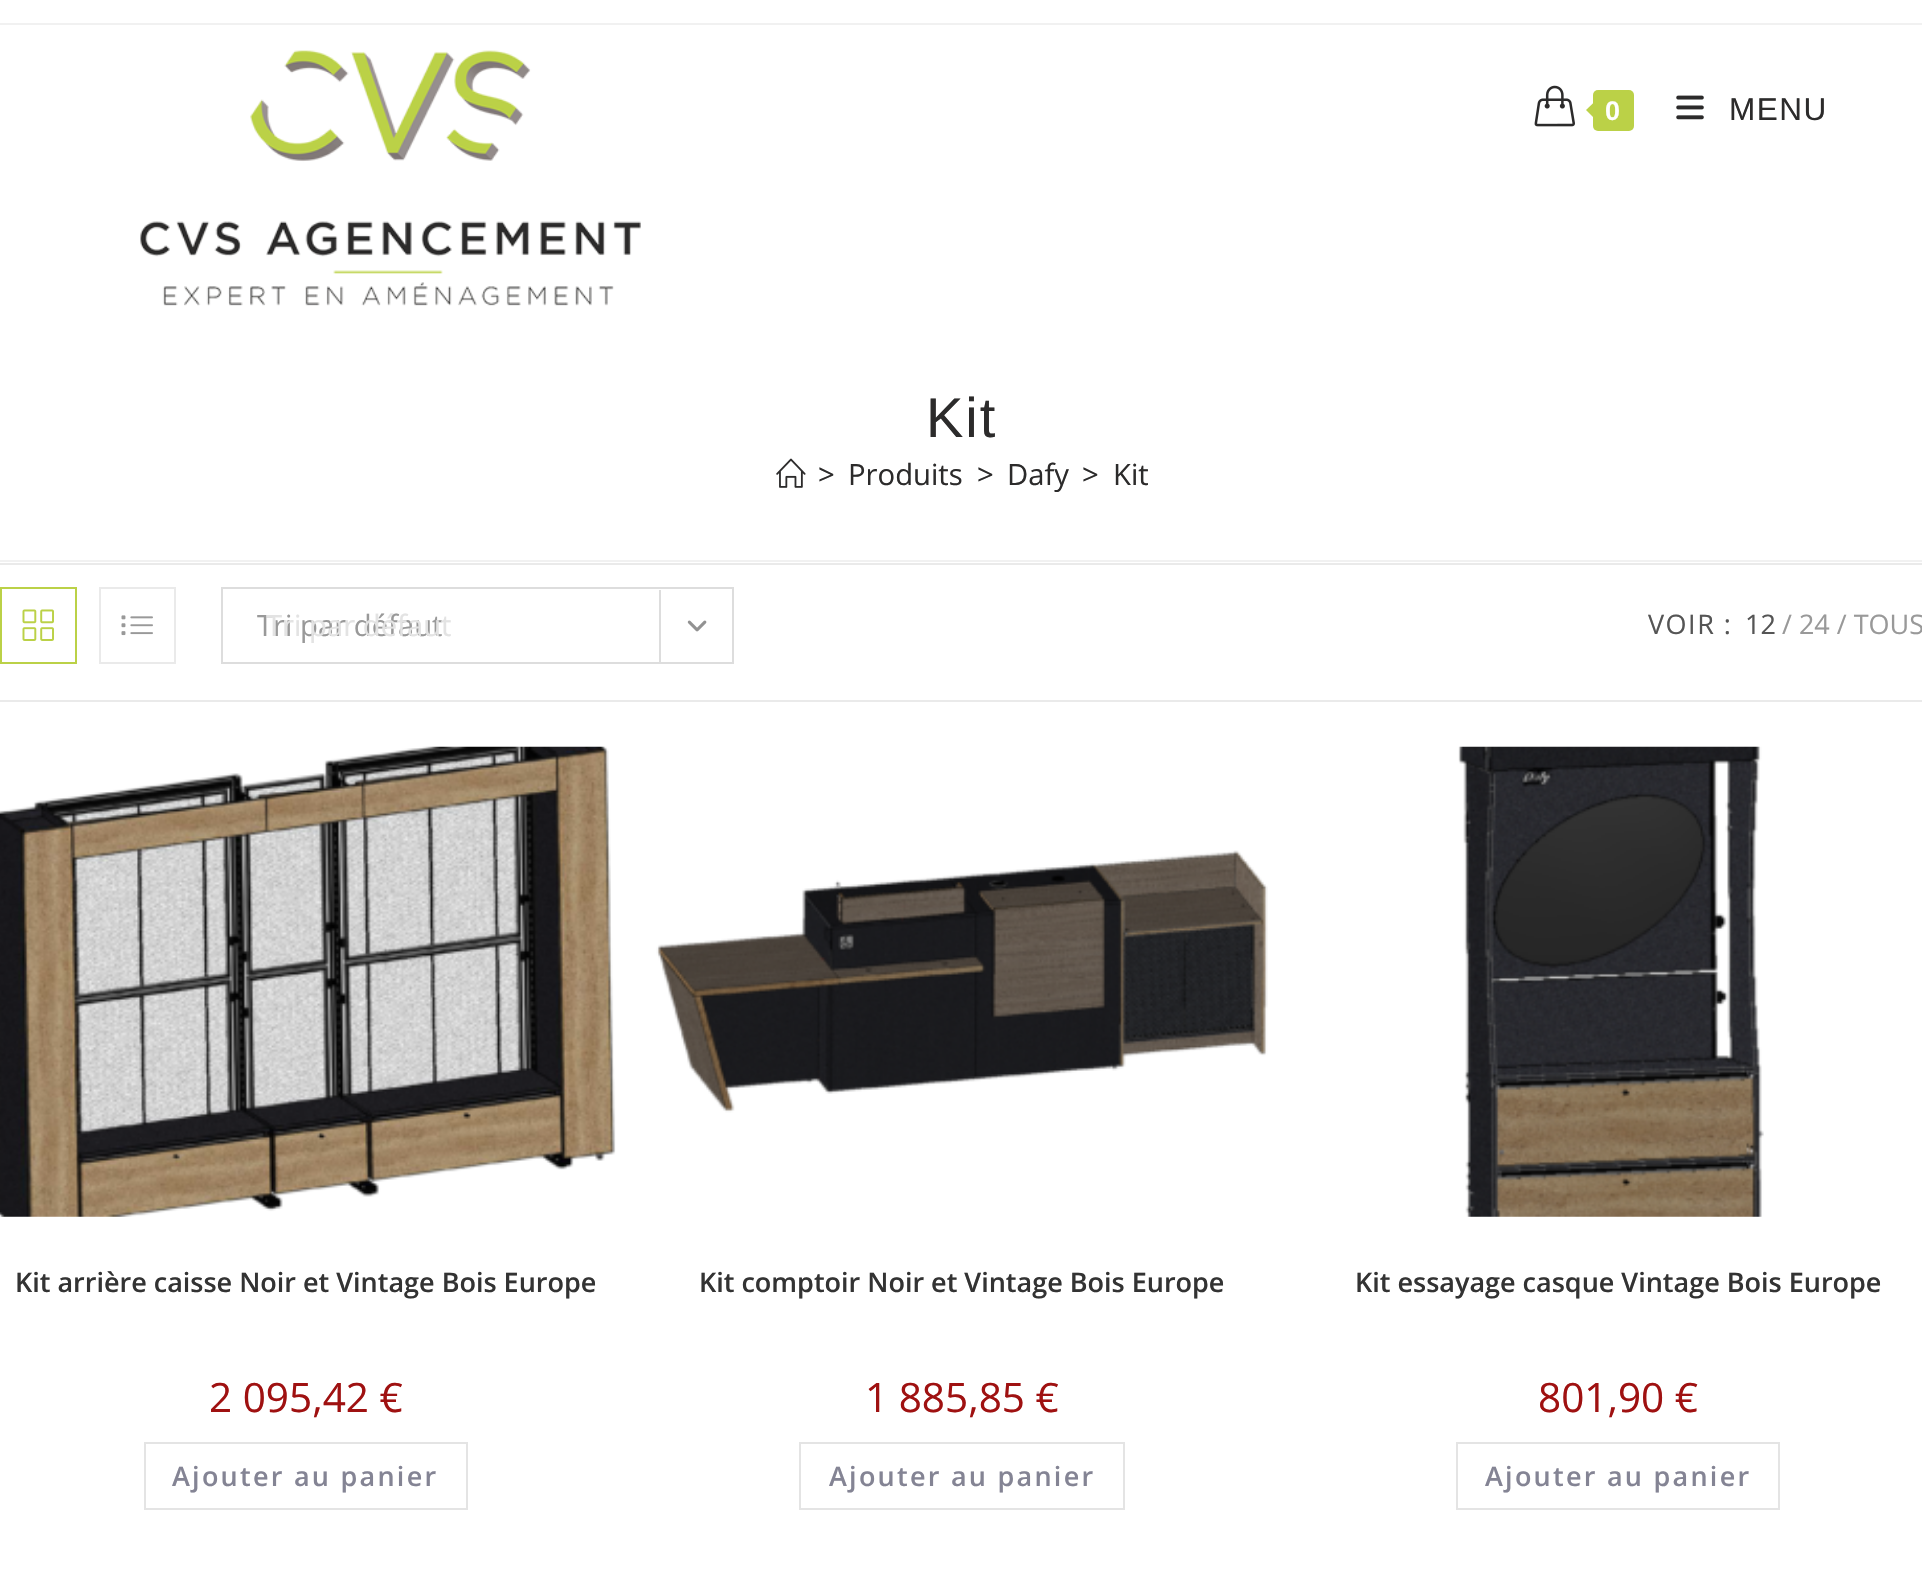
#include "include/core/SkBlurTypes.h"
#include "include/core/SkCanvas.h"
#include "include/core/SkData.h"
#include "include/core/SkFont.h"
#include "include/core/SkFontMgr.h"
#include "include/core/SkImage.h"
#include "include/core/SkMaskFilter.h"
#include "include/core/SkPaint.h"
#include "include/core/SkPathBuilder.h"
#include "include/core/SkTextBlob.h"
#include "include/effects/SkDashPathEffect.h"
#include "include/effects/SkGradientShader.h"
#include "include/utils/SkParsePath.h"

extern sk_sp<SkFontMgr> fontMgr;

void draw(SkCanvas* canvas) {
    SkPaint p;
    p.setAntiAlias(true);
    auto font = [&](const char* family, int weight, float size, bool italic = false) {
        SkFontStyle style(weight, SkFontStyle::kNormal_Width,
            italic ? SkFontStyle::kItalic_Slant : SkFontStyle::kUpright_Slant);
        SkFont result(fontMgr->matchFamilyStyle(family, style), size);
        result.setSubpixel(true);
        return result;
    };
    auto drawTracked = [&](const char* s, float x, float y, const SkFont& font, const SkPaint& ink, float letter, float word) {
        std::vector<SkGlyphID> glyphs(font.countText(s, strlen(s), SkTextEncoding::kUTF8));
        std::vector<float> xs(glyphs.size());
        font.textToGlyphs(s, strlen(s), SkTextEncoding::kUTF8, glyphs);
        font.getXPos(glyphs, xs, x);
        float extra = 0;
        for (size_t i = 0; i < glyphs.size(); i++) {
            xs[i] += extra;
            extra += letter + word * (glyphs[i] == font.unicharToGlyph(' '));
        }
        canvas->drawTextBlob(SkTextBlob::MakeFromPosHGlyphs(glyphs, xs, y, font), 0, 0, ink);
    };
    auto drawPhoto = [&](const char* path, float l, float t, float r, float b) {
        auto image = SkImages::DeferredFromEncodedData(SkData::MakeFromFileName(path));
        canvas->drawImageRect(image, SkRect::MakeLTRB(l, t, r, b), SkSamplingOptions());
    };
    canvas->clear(0xFFFFFFFF);
    p.setColor(0xFFF1F1F1);
    canvas->drawRect(SkRect::MakeLTRB(0, 23, 1922, 25), p);
    drawPhoto("media/1.png", 140, 50, 641, 306);
    drawPhoto("media/2.png", 1534, 85, 1575, 127);
    p.setColor(0xFFBBD147);
    canvas->drawRoundRect(SkRect::MakeLTRB(1593, 90, 1634, 131), 5, 5, p);
    canvas->drawPath(SkPathBuilder().moveTo(1597.5f, 99).lineTo(1597.5f, 121.5f).lineTo(1586, 110).close().detach(), p);
    auto font1 = font("Liberation Sans", 700, 27);
    p.setColor(0xFFFFFFFF);
    drawTracked("0", 1605, 120, font1, p, 1.5f, 0);
    drawPhoto("media/3.png", 1676, 95, 1704, 120);
    auto font2 = font("Liberation Sans", 400, 31.5f);
    p.setColor(0xFF2C2B2B);
    drawTracked("MENU", 1729, 120, font2, p, 1.5f, 0);
    p.setColor(0xFFF1F1F1);
    canvas->drawRect(SkRect::MakeLTRB(0, 560, 1922, 562), p);
    auto font3 = font("Liberation Sans", 400, 56);
    p.setColor(0xFF2C2B2B);
    drawTracked("Kit", 926, 437, font3, p, 2, 0);
    drawPhoto("media/4.png", 776, 458, 806, 488);
    auto font4 = font("Open Sans", 400, 29.25f);
    {
        const struct { const char* s; float x, y; } items[] = {
            {">", 818, 485},
            {"Produits", 848, 485},
            {">", 977, 485},
            {"Dafy", 1007, 485},
            {">", 1082, 485},
            {"Kit", 1113, 485},
        };
        for (auto [s, x, y] : items) {
            canvas->drawString(s, x, y, font4, p);
        }
    }
    p.setColor(0xFFEAEAEA);
    canvas->drawRect(SkRect::MakeLTRB(0, 563, 1922, 565), p);
    canvas->drawRect(SkRect::MakeLTRB(0, 700, 1922, 702), p);
    p.setStyle(SkPaint::kStroke_Style);
    p.setStrokeWidth(2);
    p.setColor(0xFFBBD147);
    canvas->drawRect(SkRect::MakeLTRB(1, 588, 76, 663), p);
    drawPhoto("media/5.png", 22, 609, 54, 641);
    p.setColor(0xFFEAEAEA);
    canvas->drawRect(SkRect::MakeLTRB(100, 588, 175, 663), p);
    drawPhoto("media/6.png", 121, 615, 153, 636);
    p.setColor(0xFFDDDDDD);
    canvas->drawRect(SkRect::MakeLTRB(222, 588, 733, 663), p);
    p.setStyle(SkPaint::kFill_Style);
    p.setColor(0xFF999999);
    canvas->drawString("Tri par défaut", 257, 636, font4, p);
    p.setColor(0xFFDDDDDD);
    canvas->drawRect(SkRect::MakeLTRB(659, 590, 661, 662), p);
    drawPhoto("media/7.png", 687, 620, 707, 632);
    canvas->save();
    canvas->clipRect(SkRect::MakeLTRB(266, 603, 662, 648));
    p.setColor(0xFFE3E3E3);
    canvas->drawString("Tri par défaut", 266, 636, font4, p);
    canvas->restore();
    auto font5 = font("Open Sans", 400, 27);
    p.setColor(0xFF555555);
    drawTracked("VOIR :", 1648, 634, font5, p, 1.5f, 0);
    canvas->drawString("12", 1745, 634, font5, p);
    p.setColor(0xFF999999);
    canvas->drawString("/ 24 / TOUS", 1782, 634, font5, p);
    drawPhoto("media/8.png", 0, 746, 616, 1217);
    auto font6 = font("Open Sans", 600, 27);
    p.setColor(0xFF333333);
    canvas->drawString("Kit arrière caisse Noir et Vintage Bois Europe", 15, 1292, font6, p);
    auto font7 = font("Open Sans", 400, 40.5f);
    p.setColor(0xFF9F1111);
    canvas->drawString("2 095,42 €", 209, 1412, font7, p);
    p.setStyle(SkPaint::kStroke_Style);
    p.setColor(0xFFE4E4E4);
    canvas->drawRect(SkRect::MakeLTRB(145, 1443, 467, 1509), p);
    p.setStyle(SkPaint::kFill_Style);
    p.setColor(0xFF848494);
    drawTracked("Ajouter au panier", 172, 1486, font6, p, 2.25f, 0);
    drawPhoto("media/9.png", 656, 850, 1268, 1113);
    p.setColor(0xFF333333);
    canvas->drawString("Kit comptoir Noir et Vintage Bois Europe", 699, 1292, font6, p);
    p.setColor(0xFF9F1111);
    canvas->drawString("1 885,85 €", 865, 1412, font7, p);
    p.setStyle(SkPaint::kStroke_Style);
    p.setColor(0xFFE4E4E4);
    canvas->drawRect(SkRect::MakeLTRB(800, 1443, 1124, 1509), p);
    p.setStyle(SkPaint::kFill_Style);
    p.setColor(0xFF848494);
    drawTracked("Ajouter au panier", 829, 1486, font6, p, 2.25f, 0);
    drawPhoto("media/10.png", 1458, 746, 1764, 1217);
    p.setColor(0xFF333333);
    canvas->drawString("Kit essayage casque Vintage Bois Europe", 1355, 1292, font6, p);
    p.setColor(0xFF9F1111);
    canvas->drawString("801,90 €", 1538, 1412, font7, p);
    p.setStyle(SkPaint::kStroke_Style);
    p.setColor(0xFFE4E4E4);
    canvas->drawRect(SkRect::MakeLTRB(1457, 1443, 1779, 1509), p);
    p.setStyle(SkPaint::kFill_Style);
    p.setColor(0xFF848494);
    drawTracked("Ajouter au panier", 1485, 1486, font6, p, 2.25f, 0);
}
